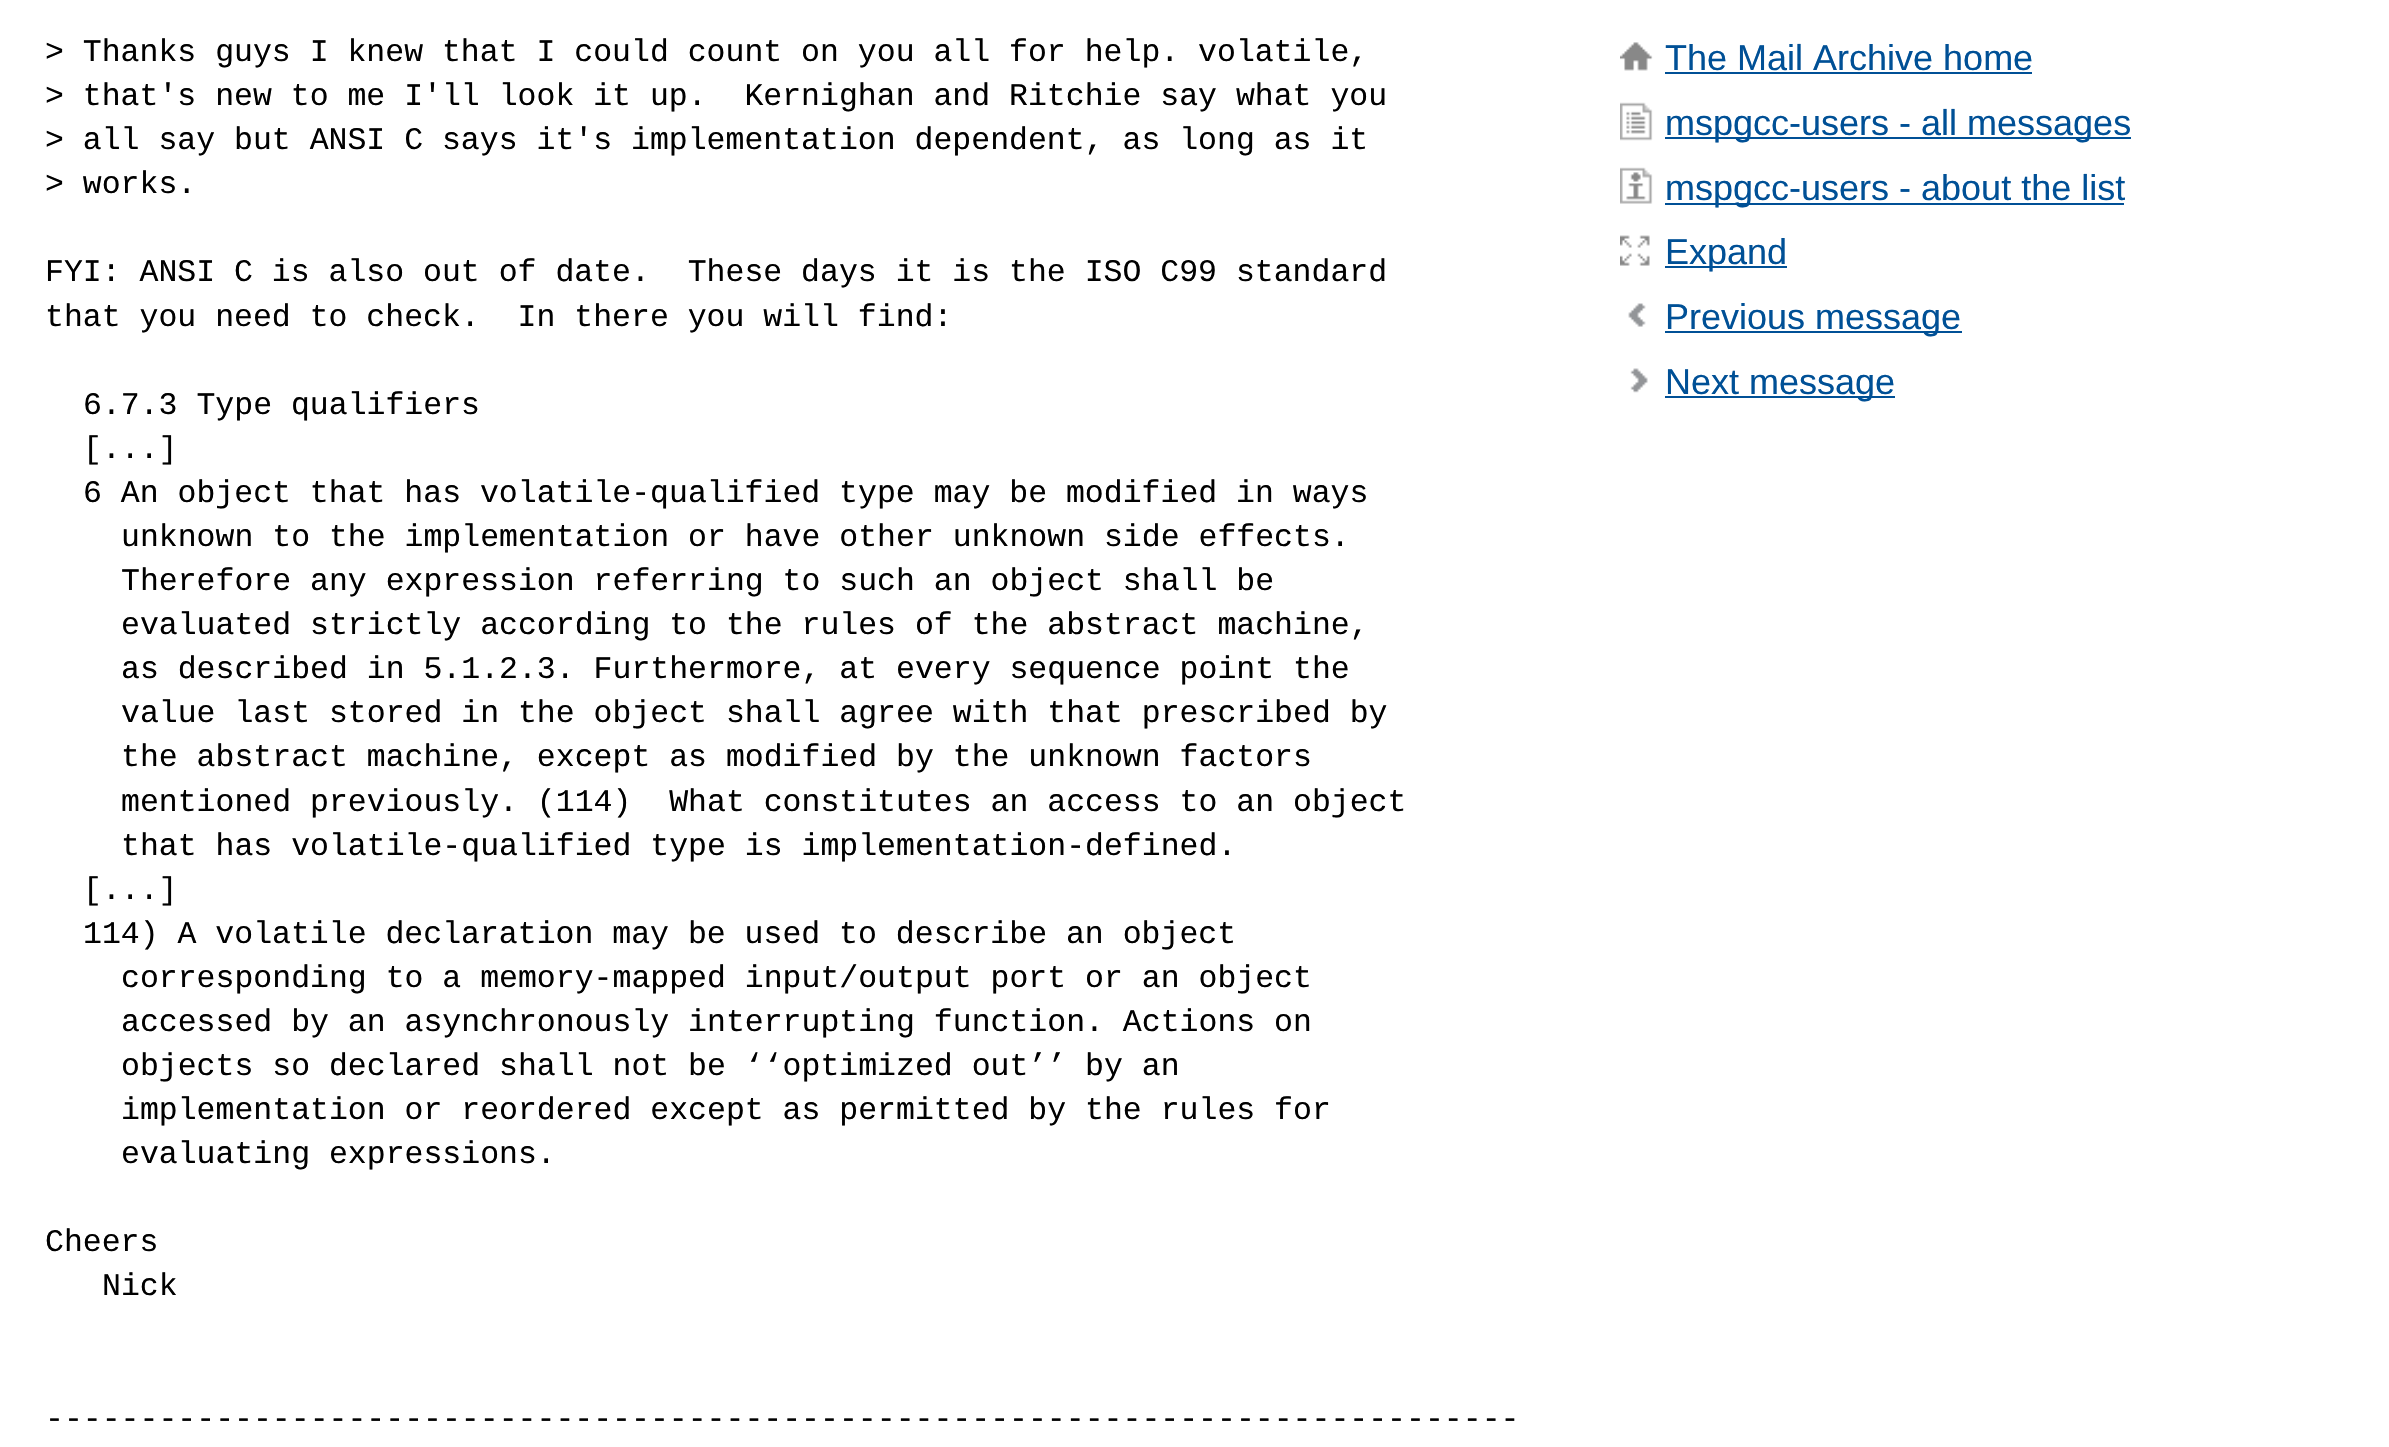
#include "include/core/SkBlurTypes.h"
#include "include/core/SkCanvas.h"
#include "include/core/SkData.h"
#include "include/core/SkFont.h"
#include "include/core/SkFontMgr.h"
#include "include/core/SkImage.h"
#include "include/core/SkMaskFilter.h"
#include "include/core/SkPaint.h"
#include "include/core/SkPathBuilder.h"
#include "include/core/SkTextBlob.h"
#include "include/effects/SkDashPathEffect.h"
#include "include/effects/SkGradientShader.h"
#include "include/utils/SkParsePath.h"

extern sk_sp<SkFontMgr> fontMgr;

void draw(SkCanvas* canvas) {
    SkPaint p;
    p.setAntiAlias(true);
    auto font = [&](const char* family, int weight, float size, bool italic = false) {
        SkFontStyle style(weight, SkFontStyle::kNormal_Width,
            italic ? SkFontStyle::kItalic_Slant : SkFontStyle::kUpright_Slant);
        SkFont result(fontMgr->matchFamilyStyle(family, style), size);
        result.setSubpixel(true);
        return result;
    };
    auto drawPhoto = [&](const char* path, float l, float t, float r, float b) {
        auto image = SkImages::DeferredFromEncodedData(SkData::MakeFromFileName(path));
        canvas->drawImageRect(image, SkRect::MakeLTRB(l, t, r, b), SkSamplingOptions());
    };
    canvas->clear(0xFFFFFFFF);
    auto font1 = font("Liberation Mono", 400, 31.5f);
    p.setColor(0xFF000000);
    {
        const struct { const char* s; float x, y; } items[] = {
            {"> Thanks guys I knew that I could count on you all for help. volatile,", 45, 61},
            {"> that's new to me I'll look it up.  Kernighan and Ritchie say what you", 45, 105},
            {"> all say but ANSI C says it's implementation dependent, as long as it", 45, 149},
            {"> works.", 45, 193},
            {"FYI: ANSI C is also out of date.  These days it is the ISO C99 standard", 45, 281},
            {"that you need to check.  In there you will find:", 45, 326},
            {"6.7.3 Type qualifiers", 83, 414},
            {"[...]", 83, 458},
            {"6 An object that has volatile-qualified type may be modified in ways", 83, 502},
            {"unknown to the implementation or have other unknown side effects.", 121, 546},
            {"Therefore any expression referring to such an object shall be", 121, 590},
            {"evaluated strictly according to the rules of the abstract machine,", 121, 634},
            {"as described in 5.1.2.3. Furthermore, at every sequence point the", 121, 678},
            {"value last stored in the object shall agree with that prescribed by", 121, 722},
            {"the abstract machine, except as modified by the unknown factors", 121, 766},
            {"mentioned previously. (114)  What constitutes an access to an object", 121, 811},
            {"that has volatile-qualified type is implementation-defined.", 121, 855},
            {"[...]", 83, 899},
            {"114) A volatile declaration may be used to describe an object", 83, 943},
            {"corresponding to a memory-mapped input/output port or an object", 121, 987},
            {"accessed by an asynchronously interrupting function. Actions on", 121, 1031},
            {"objects so declared shall not be ‘‘optimized out’’ by an", 121, 1075},
            {"implementation or reordered except as permitted by the rules for", 121, 1119},
            {"evaluating expressions.", 121, 1163},
            {"Cheers", 45, 1251},
            {"Nick", 102, 1295},
            {"------------------------------------------------------------------------------", 45, 1428},
        };
        for (auto [s, x, y] : items) {
            canvas->drawString(s, x, y, font1, p);
        }
    }
    drawPhoto("media/1.png", 1620, 42, 1653, 71);
    auto font2 = font("Liberation Sans", 400, 36);
    p.setColor(0xFF005096);
    canvas->drawString("The Mail Archive home", 1665, 70, font2, p);
    canvas->drawRect(SkRect::MakeLTRB(1665, 72, 2032, 74), p);
    drawPhoto("media/2.png", 1620, 102, 1653, 141);
    canvas->drawRect(SkRect::MakeLTRB(1665, 137, 2131, 139), p);
    canvas->drawString("mspgcc-users - all messages", 1665, 135, font2, p);
    drawPhoto("media/3.png", 1620, 167, 1653, 204);
    canvas->drawRect(SkRect::MakeLTRB(1665, 203, 2124, 205), p);
    canvas->drawString("mspgcc-users - about the list", 1665, 200, font2, p);
    drawPhoto("media/4.png", 1620, 235, 1650, 266);
    canvas->drawRect(SkRect::MakeLTRB(1665, 266, 1787, 268), p);
    canvas->drawString("Expand", 1665, 264, font2, p);
    drawPhoto("media/5.png", 1628, 303, 1646, 327);
    canvas->drawRect(SkRect::MakeLTRB(1665, 331, 1962, 333), p);
    canvas->drawString("Previous message", 1665, 329, font2, p);
    drawPhoto("media/6.png", 1630, 368, 1648, 393);
    canvas->drawRect(SkRect::MakeLTRB(1665, 396, 1895, 398), p);
    canvas->drawString("Next message", 1665, 394, font2, p);
}
